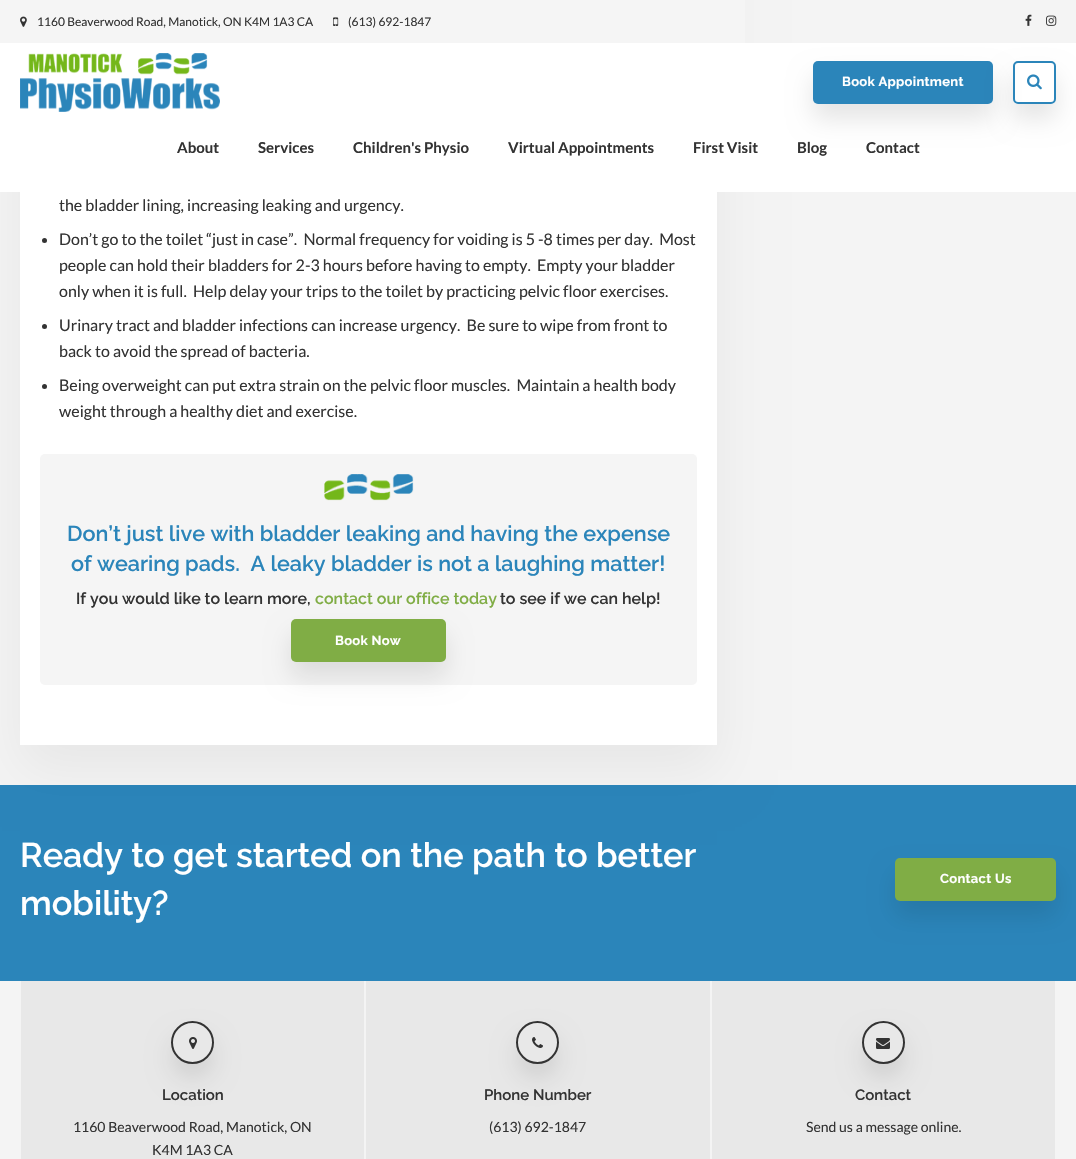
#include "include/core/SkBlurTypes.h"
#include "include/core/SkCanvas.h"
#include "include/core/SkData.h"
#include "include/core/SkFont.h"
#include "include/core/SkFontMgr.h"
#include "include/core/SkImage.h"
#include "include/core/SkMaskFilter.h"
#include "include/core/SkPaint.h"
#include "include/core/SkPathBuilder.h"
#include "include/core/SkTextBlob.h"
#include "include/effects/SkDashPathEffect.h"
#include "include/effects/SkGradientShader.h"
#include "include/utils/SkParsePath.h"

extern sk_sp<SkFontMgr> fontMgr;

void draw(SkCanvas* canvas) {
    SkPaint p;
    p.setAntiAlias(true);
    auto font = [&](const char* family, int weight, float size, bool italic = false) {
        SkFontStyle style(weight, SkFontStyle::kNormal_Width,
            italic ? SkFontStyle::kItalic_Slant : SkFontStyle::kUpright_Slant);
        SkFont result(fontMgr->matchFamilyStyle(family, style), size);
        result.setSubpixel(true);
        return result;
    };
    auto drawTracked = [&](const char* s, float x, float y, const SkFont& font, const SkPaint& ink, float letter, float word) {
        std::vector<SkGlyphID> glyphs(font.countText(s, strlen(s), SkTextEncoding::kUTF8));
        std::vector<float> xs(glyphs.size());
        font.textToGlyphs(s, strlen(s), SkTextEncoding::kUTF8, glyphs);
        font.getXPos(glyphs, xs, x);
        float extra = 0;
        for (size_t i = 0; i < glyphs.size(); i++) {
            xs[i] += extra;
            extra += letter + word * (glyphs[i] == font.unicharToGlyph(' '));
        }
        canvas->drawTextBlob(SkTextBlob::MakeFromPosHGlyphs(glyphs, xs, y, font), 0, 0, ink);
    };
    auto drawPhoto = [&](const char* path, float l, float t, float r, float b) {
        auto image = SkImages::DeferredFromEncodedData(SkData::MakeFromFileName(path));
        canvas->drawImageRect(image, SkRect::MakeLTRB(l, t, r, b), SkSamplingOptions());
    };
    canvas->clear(0xFFF4F4F4);
    p.setColor(0xFF2B85BA);
    canvas->drawRect(SkRect::MakeLTRB(0, 785, 1076, 981), p);
    p.setColor(0x0D000000);
    p.setMaskFilter(SkMaskFilter::MakeBlur(kNormal_SkBlurStyle, 25));
    canvas->drawRect(SkRect::MakeLTRB(20, -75, 717, 770), p);
    p.setMaskFilter(nullptr);
    p.setColor(0xFFFFFFFF);
    canvas->drawRect(SkRect::MakeLTRB(0, 43, 1076, 192), p);
    p.setColor(0xFFF5F5F5);
    canvas->drawRect(SkRect::MakeLTRB(0, 0, 745, 43), p);
    drawPhoto("media/1.png", 20, 16, 27, 27);
    auto font1 = font("Lato", 400, 12);
    p.setColor(0xFF333333);
    canvas->drawString("1160 Beaverwood Road, Manotick, ON K4M 1A3 CA", 37, 26, font1, p);
    drawPhoto("media/2.png", 333, 17, 339, 26);
    canvas->drawString("(613) 692-1847", 348, 26, font1, p);
    drawPhoto("media/3.png", 1025, 14, 1032, 26);
    drawPhoto("media/4.png", 1046, 15, 1057, 26);
    drawPhoto("media/5.png", 20, 53, 220, 112);
    p.setColor(0x1A000000);
    p.setMaskFilter(SkMaskFilter::MakeBlur(kNormal_SkBlurStyle, 12.5f));
    canvas->drawRoundRect(SkRect::MakeLTRB(813, 76, 993, 119), 5, 5, p);
    p.setMaskFilter(nullptr);
    p.setColor(0xFF2B85BA);
    canvas->drawRoundRect(SkRect::MakeLTRB(813, 61, 993, 104), 5, 5, p);
    auto font2 = font("Raleway", 700, 13);
    p.setColor(0xFFFFFFFF);
    drawTracked("Book Appointment", 842, 86, font2, p, 0.3f, 0);
    canvas->save();
    canvas->clipPath(SkPathBuilder(SkPathFillType::kEvenOdd).moveTo(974, 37).lineTo(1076, 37).lineTo(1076, 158).lineTo(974, 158).close().moveTo(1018, 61).lineTo(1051, 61).cubicTo(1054, 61, 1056, 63, 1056, 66).lineTo(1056, 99).cubicTo(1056, 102, 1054, 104, 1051, 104).lineTo(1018, 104).cubicTo(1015, 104, 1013, 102, 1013, 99).lineTo(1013, 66).cubicTo(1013, 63, 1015, 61, 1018, 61).close().detach(), true);
    p.setColor(0x1A000000);
    p.setMaskFilter(SkMaskFilter::MakeBlur(kNormal_SkBlurStyle, 12.5f));
    canvas->drawRoundRect(SkRect::MakeLTRB(1013, 76, 1056, 119), 5, 5, p);
    p.setMaskFilter(nullptr);
    canvas->restore();
    p.setStyle(SkPaint::kStroke_Style);
    p.setStrokeWidth(2);
    p.setColor(0xFF2B85BA);
    canvas->drawRoundRect(SkRect::MakeLTRB(1014, 62, 1055, 103), 4, 4, p);
    drawPhoto("media/6.png", 1027, 74, 1042, 90);
    auto font3 = font("Lato", 700, 15);
    p.setStyle(SkPaint::kFill_Style);
    p.setColor(0xFF333333);
    {
        const struct { const char* s; float x, y; } items[] = {
            {"About", 177, 153},
            {"Services", 258, 153},
            {"Children's Physio", 353, 153},
            {"Virtual Appointments", 508, 153},
            {"First Visit", 693, 153},
            {"Blog", 797, 153},
            {"Contact", 866, 153},
        };
        for (auto [s, x, y] : items) {
            canvas->drawString(s, x, y, font3, p);
        }
    }
    p.setColor(0xFFFFFFFF);
    canvas->drawRect(SkRect::MakeLTRB(20, 192, 717, 745), p);
    auto font4 = font("Lato", 400, 16);
    p.setColor(0xFF333333);
    canvas->drawString("the bladder lining, increasing leaking and urgency.", 59, 211, font4, p);
    canvas->drawCircle(44.5f, 240.5f, 2.5f, p);
    {
        const struct { const char* s; float x, y; } items[] = {
            {"Don’t go to the toilet “just in case”.  Normal frequency for voiding is 5 -8 times per day.  Most", 59, 245},
            {"people can hold their bladders for 2-3 hours before having to empty.  Empty your bladder", 59, 271},
            {"only when it is full.  Help delay your trips to the toilet by practicing pelvic floor exercises.", 59, 297},
        };
        for (auto [s, x, y] : items) {
            canvas->drawString(s, x, y, font4, p);
        }
    }
    canvas->drawCircle(44.5f, 326.5f, 2.5f, p);
    canvas->drawString("Urinary tract and bladder infections can increase urgency.  Be sure to wipe from front to", 59, 331, font4, p);
    canvas->drawString("back to avoid the spread of bacteria.", 59, 357, font4, p);
    canvas->drawCircle(44.5f, 386.5f, 2.5f, p);
    canvas->drawString("Being overweight can put extra strain on the pelvic floor muscles.  Maintain a health body", 59, 391, font4, p);
    canvas->drawString("weight through a healthy diet and exercise.", 59, 417, font4, p);
    p.setColor(0xFFF5F5F5);
    canvas->drawRoundRect(SkRect::MakeLTRB(40, 454, 697, 685), 5, 5, p);
    drawPhoto("media/7.png", 324, 474, 414, 501);
    auto font5 = font("Raleway", 600, 21.6f);
    p.setColor(0xFF2B85BA);
    canvas->drawString("Don’t just live with bladder leaking and having the expense", 67, 541, font5, p);
    canvas->drawString("of wearing pads.  A leaky bladder is not a laughing matter!", 71, 571, font5, p);
    auto font6 = font("Raleway", 600, 16);
    p.setColor(0xFF333333);
    canvas->drawString("If you would like to learn more,", 76, 604, font6, p);
    p.setColor(0xFF80AD45);
    canvas->drawString("contact our office today", 315, 604, font6, p);
    p.setColor(0xFF333333);
    canvas->drawString("to see if we can help!", 500, 604, font6, p);
    p.setColor(0x1A000000);
    p.setMaskFilter(SkMaskFilter::MakeBlur(kNormal_SkBlurStyle, 12.5f));
    canvas->drawRoundRect(SkRect::MakeLTRB(291, 634, 446, 677), 5, 5, p);
    p.setMaskFilter(nullptr);
    p.setColor(0xFF80AD45);
    canvas->drawRoundRect(SkRect::MakeLTRB(291, 619, 446, 662), 5, 5, p);
    p.setColor(0xFFFFFFFF);
    drawTracked("Book Now", 335, 645, font2, p, 0.3f, 0);
    auto font7 = font("Raleway", 600, 34.25f);
    canvas->drawString("Ready to get started on the path to better", 20, 867, font7, p);
    canvas->drawString("mobility?", 20, 915, font7, p);
    p.setColor(0x1A000000);
    p.setMaskFilter(SkMaskFilter::MakeBlur(kNormal_SkBlurStyle, 12.5f));
    canvas->drawRoundRect(SkRect::MakeLTRB(895, 873, 1056, 916), 5, 5, p);
    p.setMaskFilter(nullptr);
    p.setColor(0xFF80AD45);
    canvas->drawRoundRect(SkRect::MakeLTRB(895, 858, 1056, 901), 5, 5, p);
    p.setColor(0xFFFFFFFF);
    drawTracked("Contact Us", 940, 883, font2, p, 0.3f, 0);
    p.setColor(0xFFE8E8E8);
    canvas->drawRect(SkRect::MakeLTRB(21, 981, 364, 1159), p);
    canvas->save();
    canvas->clipPath(SkPathBuilder(SkPathFillType::kEvenOdd).moveTo(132, 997).lineTo(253, 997).lineTo(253, 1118).lineTo(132, 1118).close().moveTo(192.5f, 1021).cubicTo(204.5f, 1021, 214, 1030.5f, 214, 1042.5f).cubicTo(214, 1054.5f, 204.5f, 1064, 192.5f, 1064).cubicTo(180.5f, 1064, 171, 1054.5f, 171, 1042.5f).cubicTo(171, 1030.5f, 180.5f, 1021, 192.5f, 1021).close().detach(), true);
    p.setColor(0x1A000000);
    p.setMaskFilter(SkMaskFilter::MakeBlur(kNormal_SkBlurStyle, 12.5f));
    canvas->drawRoundRect(SkRect::MakeLTRB(171, 1036, 214, 1079), 21.5f, 21.5f, p);
    p.setMaskFilter(nullptr);
    canvas->restore();
    p.setStyle(SkPaint::kStroke_Style);
    p.setColor(0xFF333333);
    canvas->drawCircle(192.5f, 1042.5f, 20.5f, p);
    drawPhoto("media/8.png", 189, 1037, 197, 1049);
    auto font8 = font("Raleway", 600, 15);
    p.setStyle(SkPaint::kFill_Style);
    canvas->drawString("Location", 162, 1100, font8, p);
    auto font9 = font("Lato", 400, 14);
    canvas->drawString("1160 Beaverwood Road, Manotick, ON", 73, 1132, font9, p);
    canvas->drawString("K4M 1A3 CA", 152, 1155, font9, p);
    p.setColor(0xFFE8E8E8);
    canvas->drawRect(SkRect::MakeLTRB(366, 981, 710, 1159), p);
    canvas->save();
    canvas->clipPath(SkPathBuilder(SkPathFillType::kEvenOdd).moveTo(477, 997).lineTo(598, 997).lineTo(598, 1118).lineTo(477, 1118).close().moveTo(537.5f, 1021).cubicTo(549.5f, 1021, 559, 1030.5f, 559, 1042.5f).cubicTo(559, 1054.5f, 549.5f, 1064, 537.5f, 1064).cubicTo(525.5f, 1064, 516, 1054.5f, 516, 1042.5f).cubicTo(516, 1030.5f, 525.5f, 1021, 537.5f, 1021).close().detach(), true);
    p.setColor(0x1A000000);
    p.setMaskFilter(SkMaskFilter::MakeBlur(kNormal_SkBlurStyle, 12.5f));
    canvas->drawRoundRect(SkRect::MakeLTRB(516, 1036, 559, 1079), 21.5f, 21.5f, p);
    p.setMaskFilter(nullptr);
    canvas->restore();
    p.setStyle(SkPaint::kStroke_Style);
    p.setColor(0xFF333333);
    canvas->drawCircle(537.5f, 1042.5f, 20.5f, p);
    drawPhoto("media/9.png", 532, 1037, 543, 1048);
    p.setStyle(SkPaint::kFill_Style);
    canvas->drawString("Phone Number", 484, 1100, font8, p);
    canvas->drawString("(613) 692-1847", 489, 1132, font9, p);
    p.setColor(0xFFE8E8E8);
    canvas->drawRect(SkRect::MakeLTRB(712, 981, 1055, 1159), p);
    canvas->save();
    canvas->clipPath(SkPathBuilder(SkPathFillType::kEvenOdd).moveTo(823, 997).lineTo(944, 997).lineTo(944, 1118).lineTo(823, 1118).close().moveTo(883.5f, 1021).cubicTo(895.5f, 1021, 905, 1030.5f, 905, 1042.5f).cubicTo(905, 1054.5f, 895.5f, 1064, 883.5f, 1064).cubicTo(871.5f, 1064, 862, 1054.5f, 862, 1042.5f).cubicTo(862, 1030.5f, 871.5f, 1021, 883.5f, 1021).close().detach(), true);
    p.setColor(0x1A000000);
    p.setMaskFilter(SkMaskFilter::MakeBlur(kNormal_SkBlurStyle, 12.5f));
    canvas->drawRoundRect(SkRect::MakeLTRB(862, 1036, 905, 1079), 21.5f, 21.5f, p);
    p.setMaskFilter(nullptr);
    canvas->restore();
    p.setStyle(SkPaint::kStroke_Style);
    p.setColor(0xFF333333);
    canvas->drawCircle(883.5f, 1042.5f, 20.5f, p);
    drawPhoto("media/10.png", 876, 1038, 890, 1049);
    p.setStyle(SkPaint::kFill_Style);
    canvas->drawString("Contact", 855, 1100, font8, p);
    canvas->drawString("Send us a message online.", 806, 1132, font9, p);
}
